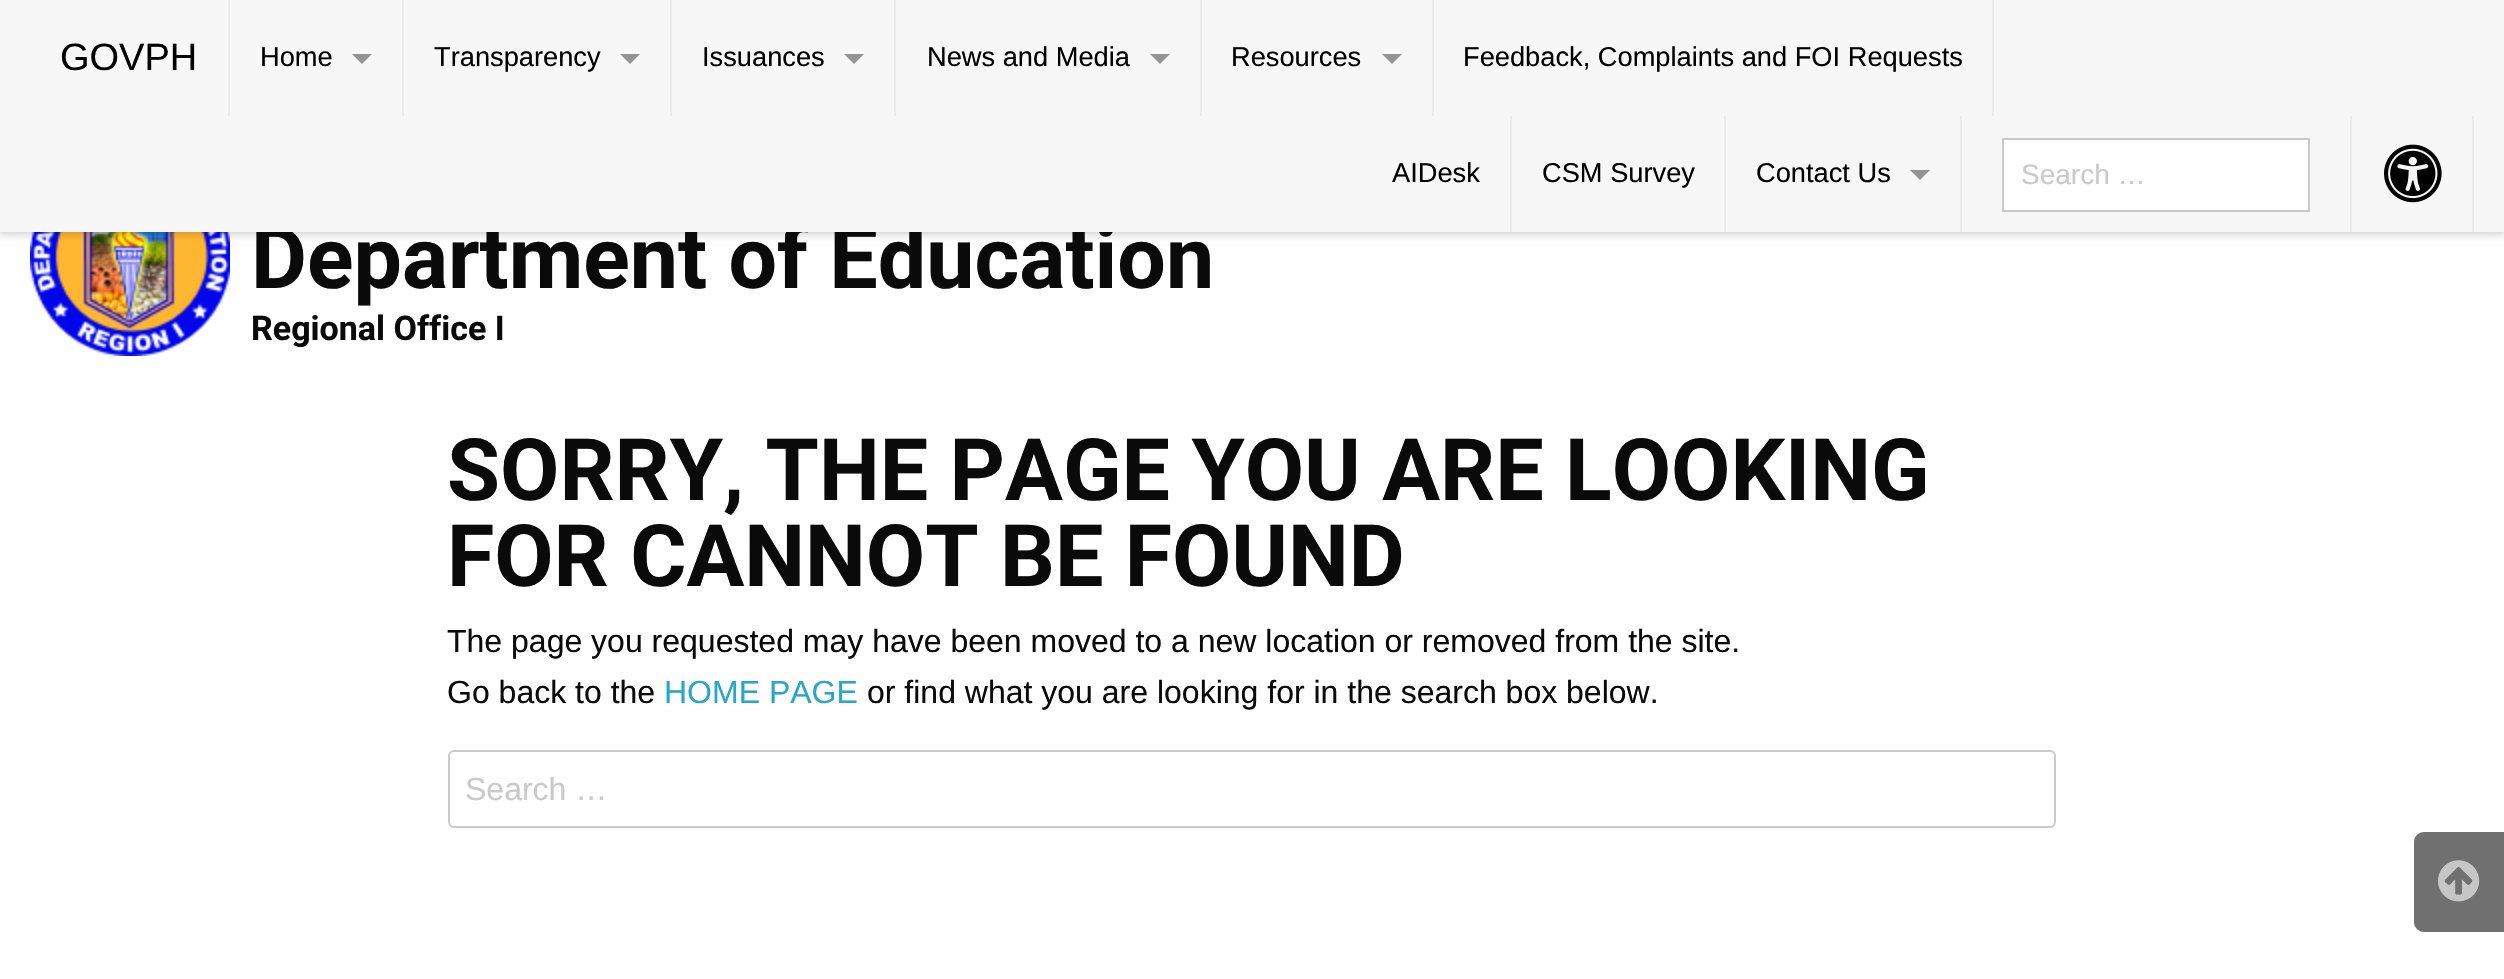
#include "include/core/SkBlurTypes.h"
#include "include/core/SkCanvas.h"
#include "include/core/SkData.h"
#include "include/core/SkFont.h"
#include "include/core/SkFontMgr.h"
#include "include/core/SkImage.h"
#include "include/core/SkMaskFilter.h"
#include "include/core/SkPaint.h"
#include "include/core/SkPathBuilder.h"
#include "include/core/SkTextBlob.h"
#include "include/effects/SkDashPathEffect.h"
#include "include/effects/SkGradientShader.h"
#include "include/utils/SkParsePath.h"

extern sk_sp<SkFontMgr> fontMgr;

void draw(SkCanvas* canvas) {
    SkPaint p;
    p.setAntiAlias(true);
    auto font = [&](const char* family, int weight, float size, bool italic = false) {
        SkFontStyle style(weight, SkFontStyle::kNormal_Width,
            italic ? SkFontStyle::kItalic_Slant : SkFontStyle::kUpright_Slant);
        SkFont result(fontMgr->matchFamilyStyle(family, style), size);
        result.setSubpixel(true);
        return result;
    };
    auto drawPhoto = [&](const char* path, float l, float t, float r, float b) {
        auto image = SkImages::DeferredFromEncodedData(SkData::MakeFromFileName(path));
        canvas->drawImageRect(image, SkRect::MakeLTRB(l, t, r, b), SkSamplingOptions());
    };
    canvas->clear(0xFFFFFFFF);
    drawPhoto("media/2.png", 30, 232, 230, 356);
    p.setColor(0x33000000);
    p.setMaskFilter(SkMaskFilter::MakeBlur(kNormal_SkBlurStyle, 4));
    canvas->drawRect(SkRect::MakeLTRB(0, 2, 2504, 234), p);
    p.setMaskFilter(nullptr);
    auto font1 = font("Roboto", 700, 86.1f);
    p.setColor(0xFF0A0A0A);
    canvas->drawString("Department of Education", 251, 288, font1, p);
    p.setColor(0xFFF7F7F7);
    canvas->drawRect(SkRect::MakeLTRB(0, 0, 2504, 232), p);
    p.setColor(0xFFEBEBEB);
    canvas->drawRect(SkRect::MakeLTRB(228, 0, 230, 116), p);
    auto font2 = font("Liberation Sans", 400, 38);
    p.setColor(0xFF000000);
    canvas->drawString("GOVPH", 60, 70, font2, p);
    p.setColor(0xFFEBEBEB);
    canvas->drawRect(SkRect::MakeLTRB(402, 0, 404, 116), p);
    auto font3 = font("Liberation Sans", 400, 27.25f);
    p.setColor(0xFF000000);
    canvas->drawString("Home", 260, 66, font3, p);
    p.setColor(0xFF949494);
    canvas->drawPath(SkPathBuilder().moveTo(352, 54).lineTo(372, 54).lineTo(362, 64).close().detach(), p);
    p.setColor(0xFFEBEBEB);
    canvas->drawRect(SkRect::MakeLTRB(670, 0, 672, 116), p);
    p.setColor(0xFF000000);
    canvas->drawString("Transparency", 434, 66, font3, p);
    p.setColor(0xFF949494);
    canvas->drawPath(SkPathBuilder().moveTo(620, 54).lineTo(640, 54).lineTo(630, 64).close().detach(), p);
    p.setColor(0xFFEBEBEB);
    canvas->drawRect(SkRect::MakeLTRB(894, 0, 896, 116), p);
    p.setColor(0xFF000000);
    canvas->drawString("Issuances", 702, 66, font3, p);
    p.setColor(0xFF949494);
    canvas->drawPath(SkPathBuilder().moveTo(844, 54).lineTo(864, 54).lineTo(854, 64).close().detach(), p);
    p.setColor(0xFFEBEBEB);
    canvas->drawRect(SkRect::MakeLTRB(1200, 0, 1202, 116), p);
    p.setColor(0xFF000000);
    canvas->drawString("News and Media", 927, 66, font3, p);
    p.setColor(0xFF949494);
    canvas->drawPath(SkPathBuilder().moveTo(1150, 54).lineTo(1170, 54).lineTo(1160, 64).close().detach(), p);
    p.setColor(0xFFEBEBEB);
    canvas->drawRect(SkRect::MakeLTRB(1432, 0, 1434, 116), p);
    p.setColor(0xFF000000);
    canvas->drawString("Resources", 1231, 66, font3, p);
    p.setColor(0xFF949494);
    canvas->drawPath(SkPathBuilder().moveTo(1382, 54).lineTo(1402, 54).lineTo(1392, 64).close().detach(), p);
    p.setColor(0xFFEBEBEB);
    canvas->drawRect(SkRect::MakeLTRB(1992, 0, 1994, 116), p);
    p.setColor(0xFF000000);
    canvas->drawString("Feedback, Complaints and FOI Requests", 1463, 66, font3, p);
    p.setColor(0xFFEBEBEB);
    canvas->drawRect(SkRect::MakeLTRB(1510, 116, 1512, 232), p);
    p.setColor(0xFF000000);
    canvas->drawString("AIDesk", 1392, 182, font3, p);
    p.setColor(0xFFEBEBEB);
    canvas->drawRect(SkRect::MakeLTRB(1724, 116, 1726, 232), p);
    p.setColor(0xFF000000);
    canvas->drawString("CSM Survey", 1542, 182, font3, p);
    p.setColor(0xFFEBEBEB);
    canvas->drawRect(SkRect::MakeLTRB(1960, 116, 1962, 232), p);
    p.setColor(0xFF000000);
    canvas->drawString("Contact Us", 1756, 182, font3, p);
    p.setColor(0xFF949494);
    canvas->drawPath(SkPathBuilder().moveTo(1910, 170).lineTo(1930, 170).lineTo(1920, 180).close().detach(), p);
    p.setColor(0xFFEBEBEB);
    canvas->drawRect(SkRect::MakeLTRB(2350, 116, 2352, 232), p);
    p.setColor(0xFFFEFEFE);
    canvas->drawRect(SkRect::MakeLTRB(2003, 139, 2309, 211), p);
    p.setStyle(SkPaint::kStroke_Style);
    p.setStrokeWidth(2);
    p.setColor(0xFFCACACA);
    canvas->drawRect(SkRect::MakeLTRB(2003, 139, 2309, 211), p);
    auto font4 = font("Liberation Sans", 400, 28);
    p.setStyle(SkPaint::kFill_Style);
    canvas->drawString("Search …", 2021, 184, font4, p);
    p.setColor(0xFFEBEBEB);
    canvas->drawRect(SkRect::MakeLTRB(2472, 116, 2474, 232), p);
    drawPhoto("media/1.png", 2384, 144, 2442, 203);
    auto font5 = font("Roboto", 700, 34);
    p.setColor(0xFF0A0A0A);
    canvas->drawString("Regional Office I", 251, 340, font5, p);
    canvas->drawString("SORRY, THE PAGE YOU ARE LOOKING", 447, 500, font1, p);
    canvas->drawString("FOR CANNOT BE FOUND", 447, 586, font1, p);
    auto font6 = font("Liberation Sans", 400, 32);
    canvas->drawString("The page you requested may have been moved to a new location or removed from the site.", 447, 652, font6, p);
    canvas->drawString("Go back to the", 447, 703, font6, p);
    p.setColor(0xFF2BA6CB);
    canvas->drawString("HOME PAGE", 664, 703, font6, p);
    p.setColor(0xFF0A0A0A);
    canvas->drawString("or find what you are looking for in the search box below.", 867, 703, font6, p);
    p.setStyle(SkPaint::kStroke_Style);
    p.setColor(0xFFCACACA);
    canvas->drawRoundRect(SkRect::MakeLTRB(449, 751, 2055, 827), 5, 5, p);
    p.setStyle(SkPaint::kFill_Style);
    canvas->drawString("Search …", 465, 800, font6, p);
    p.setColor(0xFF707070);
    canvas->drawPath(SkPathBuilder().moveTo(2424, 832).lineTo(2504, 832).lineTo(2504, 932).lineTo(2424, 932).cubicTo(2418.5f, 932, 2414, 927.5f, 2414, 922).lineTo(2414, 842).cubicTo(2414, 836.5f, 2418.5f, 832, 2424, 832).close().detach(), p);
    drawPhoto("media/3.png", 2438, 860, 2480, 902);
}
